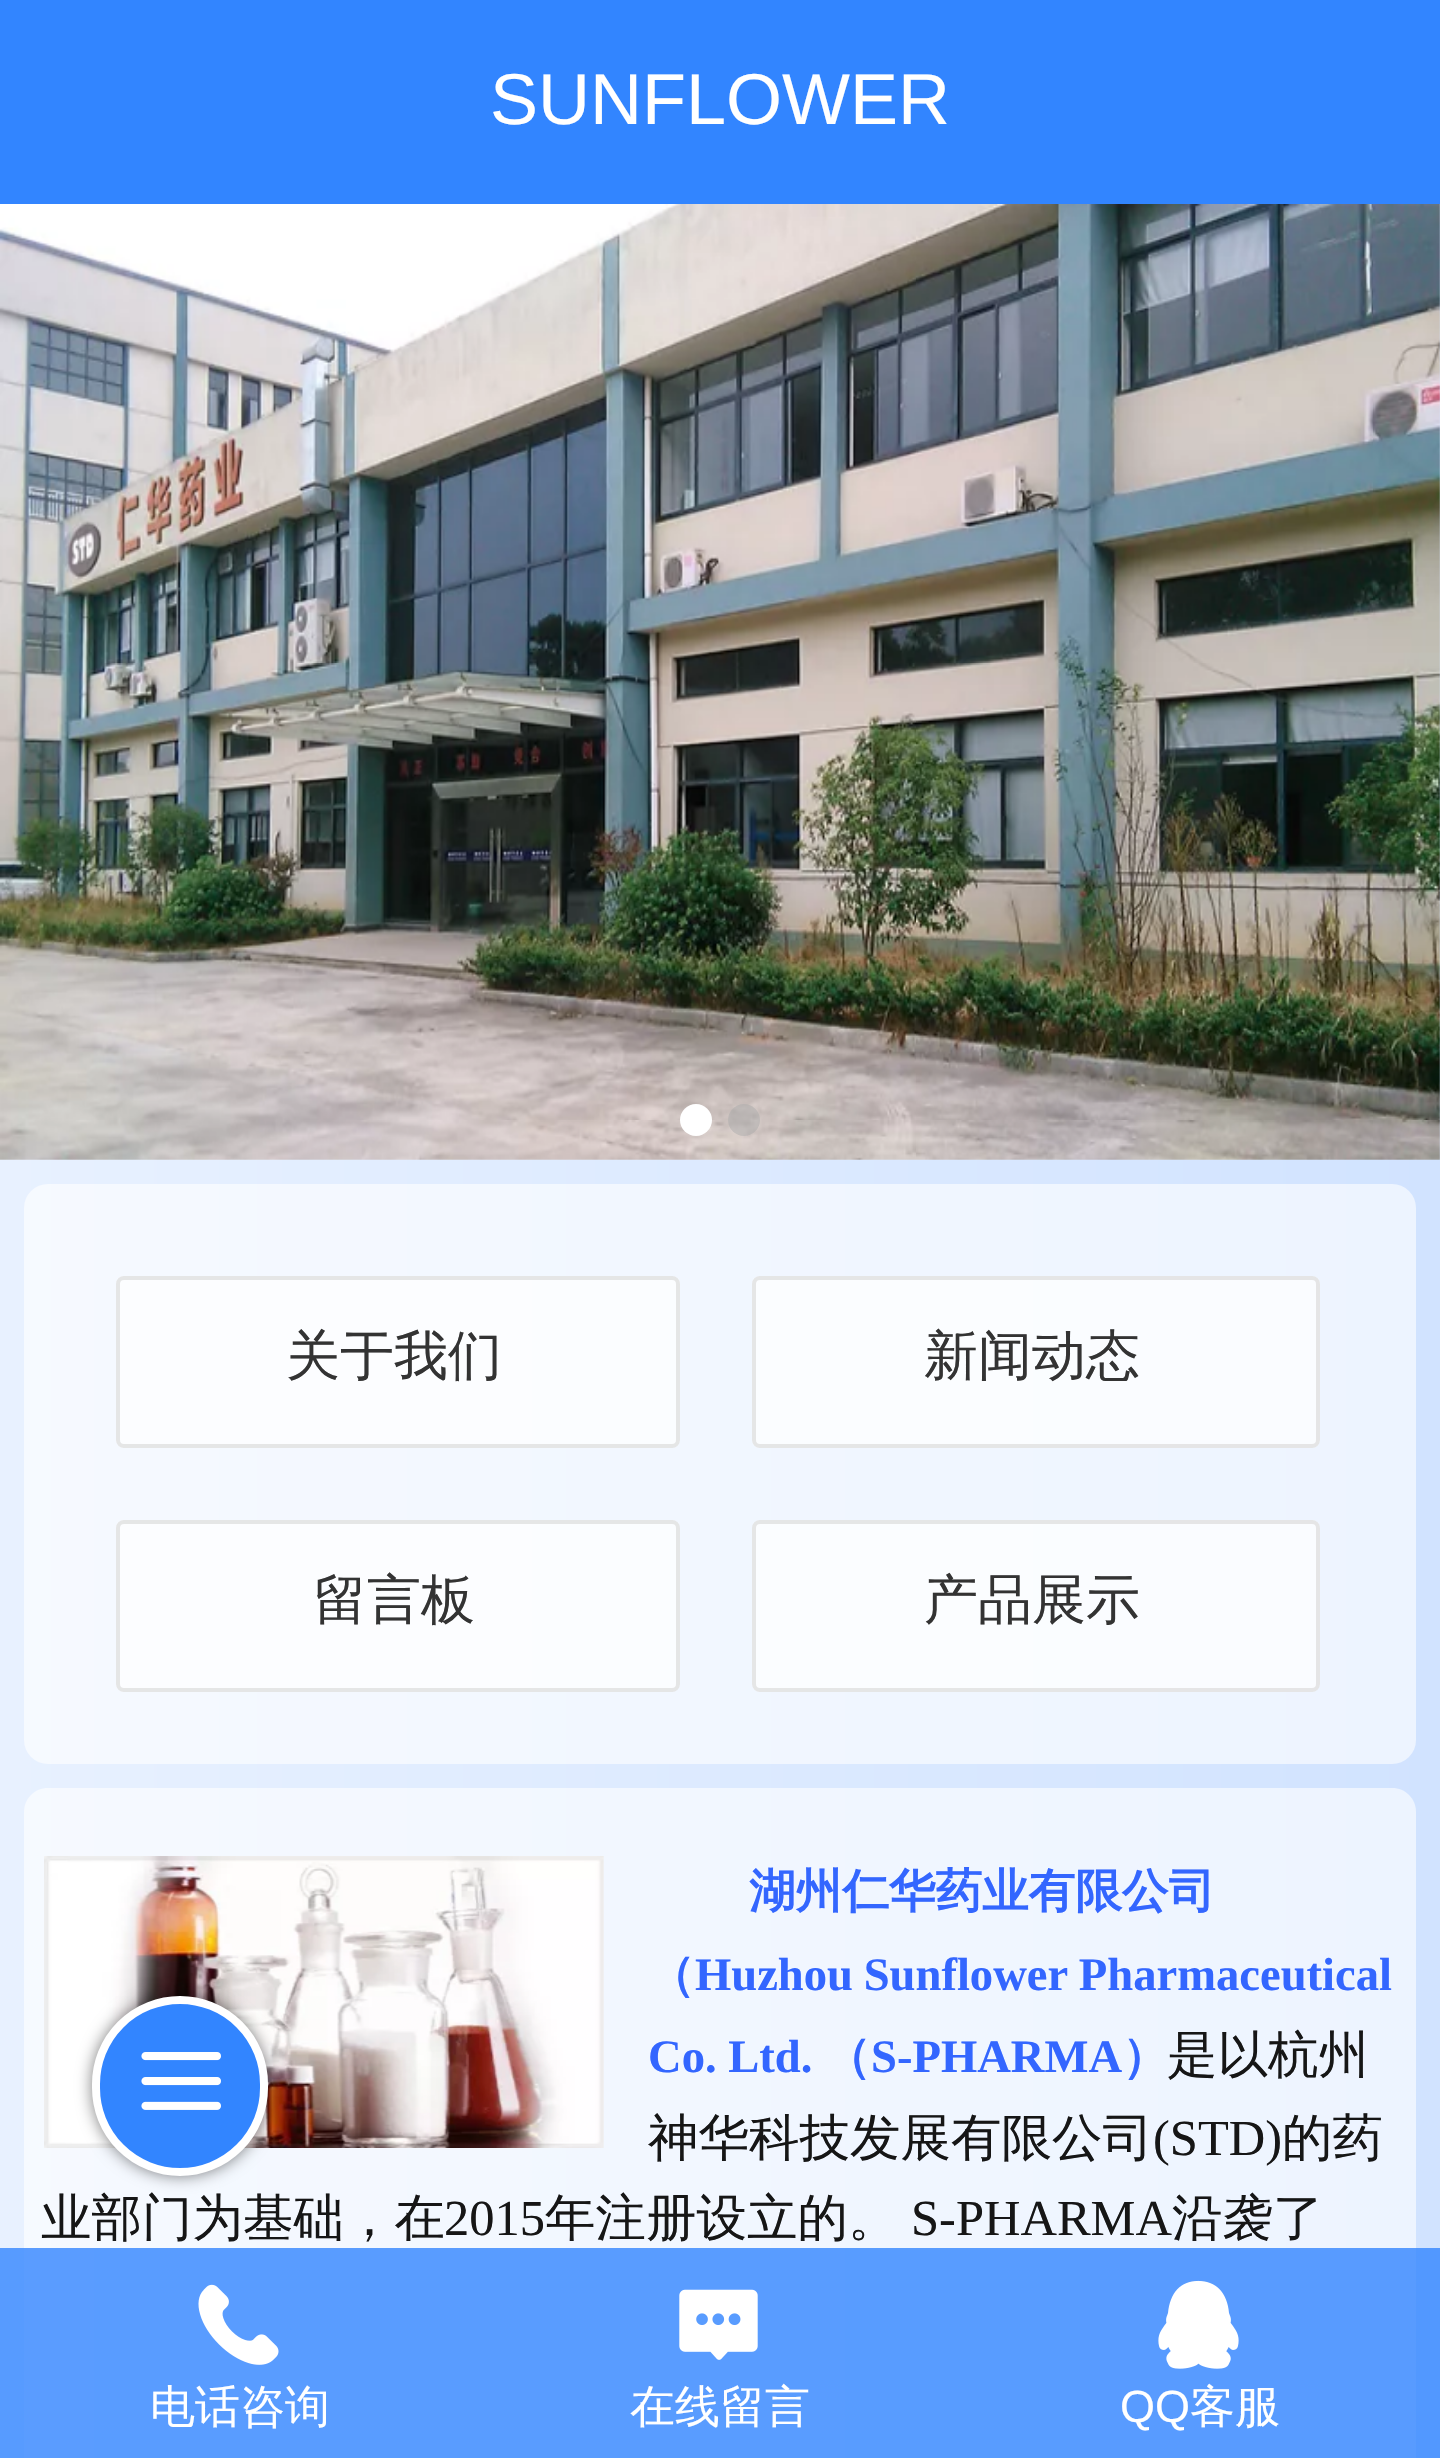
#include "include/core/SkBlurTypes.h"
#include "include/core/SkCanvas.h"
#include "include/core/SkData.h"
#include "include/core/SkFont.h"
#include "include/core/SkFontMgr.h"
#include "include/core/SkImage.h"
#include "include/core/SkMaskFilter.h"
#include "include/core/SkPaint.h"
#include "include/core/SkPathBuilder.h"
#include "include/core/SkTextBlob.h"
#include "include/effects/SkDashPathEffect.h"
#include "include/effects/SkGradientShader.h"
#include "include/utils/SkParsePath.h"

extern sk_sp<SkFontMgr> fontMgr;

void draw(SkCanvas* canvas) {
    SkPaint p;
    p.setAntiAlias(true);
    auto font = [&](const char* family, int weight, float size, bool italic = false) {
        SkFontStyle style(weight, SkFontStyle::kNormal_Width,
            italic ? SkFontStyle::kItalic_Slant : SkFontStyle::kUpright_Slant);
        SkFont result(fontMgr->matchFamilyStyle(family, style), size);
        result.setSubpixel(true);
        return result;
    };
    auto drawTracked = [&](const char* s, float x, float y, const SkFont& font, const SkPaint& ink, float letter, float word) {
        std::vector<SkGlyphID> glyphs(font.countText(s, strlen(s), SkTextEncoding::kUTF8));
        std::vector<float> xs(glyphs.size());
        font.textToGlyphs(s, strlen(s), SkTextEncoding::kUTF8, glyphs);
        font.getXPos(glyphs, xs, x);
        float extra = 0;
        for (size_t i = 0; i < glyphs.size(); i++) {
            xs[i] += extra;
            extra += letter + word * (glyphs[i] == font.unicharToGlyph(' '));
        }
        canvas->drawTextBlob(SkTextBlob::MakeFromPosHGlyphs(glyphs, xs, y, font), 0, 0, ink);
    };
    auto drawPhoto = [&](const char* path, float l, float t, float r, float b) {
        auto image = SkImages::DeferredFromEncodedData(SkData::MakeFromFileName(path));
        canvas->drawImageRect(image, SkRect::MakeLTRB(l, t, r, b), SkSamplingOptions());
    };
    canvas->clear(0xFFFFFFFF);
    p.setColor(0xFF3285FF);
    canvas->drawRect(SkRect::MakeLTRB(0, 0, 1440, 204), p);
    auto font1 = font("Liberation Sans", 400, 72);
    p.setColor(0xFFFFFFFF);
    canvas->drawString("SUNFLOWER", 490, 124, font1, p);
    {
        const SkColor colors[] = {0xFFE8F1FF, 0xFFD1E3FF};
        const float stops[] = {0, 1};
        const SkPoint ends[] = {{0, 0}, {1440, 0}};
        p.setShader(SkGradientShader::MakeLinear(ends, colors, stops, 2, SkTileMode::kClamp));
        p.setAlpha(255);
    }
    canvas->drawRect(SkRect::MakeLTRB(0, 204, 1440, 2458), p);
    p.setShader(nullptr);
    p.setColor(0x99FFFFFF);
    canvas->drawPath(SkPathBuilder().moveTo(48, 1788).lineTo(1392, 1788).cubicTo(1405.5f, 1788, 1416, 1798.5f, 1416, 1812).lineTo(1416, 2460).lineTo(24, 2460).lineTo(24, 1812).cubicTo(24, 1798.5f, 34.5f, 1788, 48, 1788).close().detach(), p);
    drawPhoto("media/3.png", 44, 1856, 604, 2148);
    p.setColor(0x80000000);
    p.setMaskFilter(SkMaskFilter::MakeBlur(kNormal_SkBlurStyle, 8));
    canvas->drawRoundRect(SkRect::MakeLTRB(92, 1996, 268, 2176), 88, 88, p);
    p.setMaskFilter(nullptr);
    p.setColor(0xFF3285FF);
    canvas->drawRoundRect(SkRect::MakeLTRB(96, 2000, 264, 2172), 84, 84, p);
    p.setStyle(SkPaint::kStroke_Style);
    p.setStrokeWidth(8);
    p.setColor(0xFFFFFFFF);
    canvas->drawRoundRect(SkRect::MakeLTRB(96, 2000, 264, 2172), 84, 84, p);
    drawPhoto("media/1.png", 141, 2052, 221, 2110);
    drawPhoto("media/2.png", 0, 204, 1440, 1160);
    p.setStyle(SkPaint::kFill_Style);
    canvas->drawCircle(696, 1120, 16, p);
    p.setColor(0x80ABABAB);
    canvas->drawCircle(744, 1120, 16, p);
    p.setColor(0x99FFFFFF);
    canvas->drawRoundRect(SkRect::MakeLTRB(24, 1184, 1416, 1764), 24, 24, p);
    p.setColor(0xB3FFFFFF);
    canvas->drawRoundRect(SkRect::MakeLTRB(116, 1276, 680, 1448), 8, 8, p);
    p.setStyle(SkPaint::kStroke_Style);
    p.setStrokeWidth(4);
    p.setColor(0xB3DBDBDB);
    canvas->drawRoundRect(SkRect::MakeLTRB(118, 1278, 678, 1446), 6, 6, p);
    auto font2 = font("WenQuanYi Zen Hei", 500, 54);
    p.setStyle(SkPaint::kFill_Style);
    p.setColor(0xFF333333);
    canvas->drawString("关于我们", 286, 1374, font2, p);
    p.setColor(0xB3FFFFFF);
    canvas->drawRoundRect(SkRect::MakeLTRB(752, 1276, 1320, 1448), 8, 8, p);
    p.setStyle(SkPaint::kStroke_Style);
    p.setColor(0xB3DBDBDB);
    canvas->drawRoundRect(SkRect::MakeLTRB(754, 1278, 1318, 1446), 6, 6, p);
    p.setStyle(SkPaint::kFill_Style);
    p.setColor(0xFF333333);
    canvas->drawString("新闻动态", 924, 1374, font2, p);
    p.setColor(0xB3FFFFFF);
    canvas->drawRoundRect(SkRect::MakeLTRB(116, 1520, 680, 1692), 8, 8, p);
    p.setStyle(SkPaint::kStroke_Style);
    p.setColor(0xB3DBDBDB);
    canvas->drawRoundRect(SkRect::MakeLTRB(118, 1522, 678, 1690), 6, 6, p);
    p.setStyle(SkPaint::kFill_Style);
    p.setColor(0xFF333333);
    canvas->drawString("留言板", 313, 1618, font2, p);
    p.setColor(0xB3FFFFFF);
    canvas->drawRoundRect(SkRect::MakeLTRB(752, 1520, 1320, 1692), 8, 8, p);
    p.setStyle(SkPaint::kStroke_Style);
    p.setColor(0xB3DBDBDB);
    canvas->drawRoundRect(SkRect::MakeLTRB(754, 1522, 1318, 1690), 6, 6, p);
    p.setStyle(SkPaint::kFill_Style);
    p.setColor(0xFF333333);
    canvas->drawString("产品展示", 924, 1618, font2, p);
    auto font3 = font("WenQuanYi Zen Hei", 700, 46.6f);
    p.setColor(0xFF3366FF);
    canvas->drawString("湖州仁华药业有限公司", 749, 1907, font3, p);
    canvas->drawString("（", 648, 1990, font3, p);
    auto font4 = font("Liberation Serif", 700, 46.6f);
    drawTracked("Huzhou Sunflower Pharmaceutical", 695, 1990, font4, p, 0, -1);
    canvas->drawString("Co. Ltd.", 648, 2072, font4, p);
    canvas->drawString("（", 824, 2072, font3, p);
    canvas->drawString("S-PHARMA", 871, 2072, font4, p);
    canvas->drawString("）", 1122, 2072, font3, p);
    auto font5 = font("WenQuanYi Zen Hei", 500, 50.5f);
    p.setColor(0xFF161616);
    canvas->drawString("是以杭州", 1167, 2072, font5, p);
    canvas->drawString("神华科技发展有限公司", 648, 2155, font5, p);
    auto font6 = font("Liberation Serif", 400, 50.5f);
    canvas->drawString("(STD)", 1153, 2155, font6, p);
    canvas->drawString("的药", 1282, 2155, font5, p);
    canvas->drawString("业部门为基础，在", 41, 2235, font5, p);
    canvas->drawString("2015", 444, 2235, font6, p);
    canvas->drawString("年注册设立的。", 545, 2235, font5, p);
    canvas->drawString("S-PHARMA", 911, 2235, font6, p);
    canvas->drawString("沿袭了", 1172, 2235, font5, p);
    p.setColor(0xCC3285FF);
    canvas->drawRect(SkRect::MakeLTRB(0, 2248, 1440, 2458), p);
    drawPhoto("media/4.png", 198, 2284, 279, 2365);
    auto font7 = font("WenQuanYi Zen Hei", 500, 45);
    p.setColor(0xFFFFFFFF);
    canvas->drawString("电话咨询", 150, 2422, font7, p);
    drawPhoto("media/5.png", 679, 2289, 758, 2360);
    canvas->drawString("在线留言", 630, 2422, font7, p);
    drawPhoto("media/6.png", 1158, 2280, 1239, 2369);
    auto font8 = font("Liberation Sans", 400, 45);
    canvas->drawString("QQ", 1120, 2422, font8, p);
    canvas->drawString("客服", 1190, 2422, font7, p);
}
